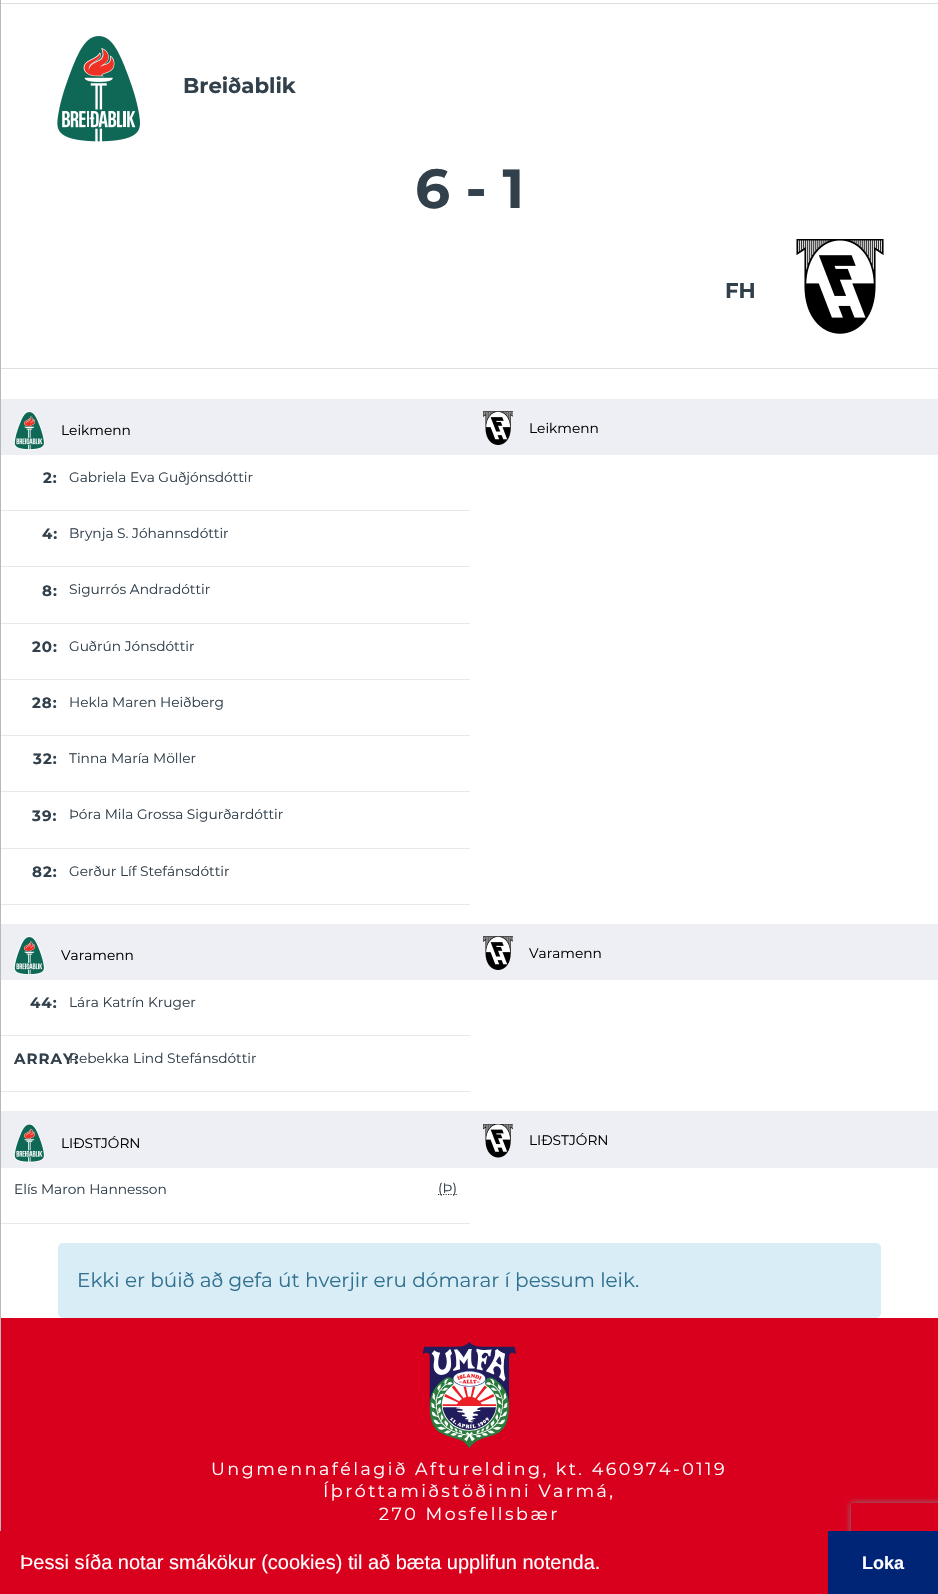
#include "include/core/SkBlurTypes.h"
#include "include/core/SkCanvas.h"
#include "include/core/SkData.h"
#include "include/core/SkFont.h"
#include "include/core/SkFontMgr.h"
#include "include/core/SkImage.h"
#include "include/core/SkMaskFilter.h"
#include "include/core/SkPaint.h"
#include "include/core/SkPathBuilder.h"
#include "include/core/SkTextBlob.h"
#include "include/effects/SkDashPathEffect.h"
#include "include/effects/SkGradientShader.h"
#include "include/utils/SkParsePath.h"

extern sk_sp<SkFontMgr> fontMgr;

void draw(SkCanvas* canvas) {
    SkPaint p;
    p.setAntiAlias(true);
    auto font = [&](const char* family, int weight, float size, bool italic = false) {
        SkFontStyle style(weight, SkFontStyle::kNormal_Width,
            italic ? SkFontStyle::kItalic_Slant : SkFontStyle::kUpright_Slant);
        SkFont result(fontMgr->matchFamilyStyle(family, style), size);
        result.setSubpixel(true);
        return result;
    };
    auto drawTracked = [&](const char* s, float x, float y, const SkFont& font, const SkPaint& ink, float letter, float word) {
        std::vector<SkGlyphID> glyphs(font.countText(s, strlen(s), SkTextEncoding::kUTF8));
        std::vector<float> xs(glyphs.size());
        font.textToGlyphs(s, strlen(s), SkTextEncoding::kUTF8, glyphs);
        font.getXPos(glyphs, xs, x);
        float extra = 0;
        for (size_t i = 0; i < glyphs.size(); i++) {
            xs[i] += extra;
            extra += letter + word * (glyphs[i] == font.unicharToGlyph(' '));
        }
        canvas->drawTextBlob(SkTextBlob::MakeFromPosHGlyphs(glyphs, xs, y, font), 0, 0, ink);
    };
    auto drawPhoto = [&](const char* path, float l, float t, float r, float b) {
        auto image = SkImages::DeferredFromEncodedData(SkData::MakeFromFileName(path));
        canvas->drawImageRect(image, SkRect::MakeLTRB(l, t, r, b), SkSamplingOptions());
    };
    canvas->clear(0xFFFFFFFF);
    {
        const struct { float l, t, r, b; SkColor color; } items[] = {
            {0, 0, 1, 1531, 0xFFB9B9B9},
            {1, 3, 938, 4, 0xFFDFDFDF},
            {1, 368, 938, 369, 0xFFDFDFDF},
        };
        for (auto [l, t, r, b, color] : items) {
            p.setColor(color);
            canvas->drawRect(SkRect::MakeLTRB(l, t, r, b), p);
        }
    }
    drawPhoto("media/1.png", 57, 36, 140, 142);
    auto font1 = font("Montserrat", 700, 21.25f);
    p.setColor(0xFF32404B);
    canvas->drawString("Breiðablik", 183, 93, font1, p);
    auto font2 = font("Montserrat", 700, 55);
    canvas->drawString("6 - 1", 415, 208, font2, p);
    canvas->drawString("FH", 725, 298, font1, p);
    drawPhoto("media/2.png", 796, 239, 884, 334);
    p.setColor(0xFFEEEFF4);
    canvas->drawRect(SkRect::MakeLTRB(1, 399, 938, 455), p);
    drawPhoto("media/3.png", 14, 411, 45, 450);
    auto font3 = font("Montserrat", 400, 13.75f);
    p.setColor(0xFF000000);
    canvas->drawString("Leikmenn", 61, 435, font3, p);
    p.setColor(0xFFE8E8E8);
    canvas->drawRect(SkRect::MakeLTRB(1, 510, 470, 511), p);
    auto font4 = font("Montserrat", 700, 15);
    p.setColor(0xFF32404B);
    drawTracked("2:", 43, 483, font4, p, 1, 0);
    canvas->drawString("Gabriela Eva Guðjónsdóttir", 69, 482, font3, p);
    p.setColor(0xFFE8E8E8);
    canvas->drawRect(SkRect::MakeLTRB(1, 566, 470, 567), p);
    p.setColor(0xFF32404B);
    drawTracked("4:", 42, 539, font4, p, 1, 0);
    canvas->drawString("Brynja S. Jóhannsdóttir", 69, 538, font3, p);
    p.setColor(0xFFE8E8E8);
    canvas->drawRect(SkRect::MakeLTRB(1, 623, 470, 624), p);
    p.setColor(0xFF32404B);
    drawTracked("8:", 42, 596, font4, p, 1, 0);
    canvas->drawString("Sigurrós Andradóttir", 69, 594, font3, p);
    p.setColor(0xFFE8E8E8);
    canvas->drawRect(SkRect::MakeLTRB(1, 679, 470, 680), p);
    p.setColor(0xFF32404B);
    drawTracked("20:", 32, 652, font4, p, 1, 0);
    canvas->drawString("Guðrún Jónsdóttir", 69, 651, font3, p);
    p.setColor(0xFFE8E8E8);
    canvas->drawRect(SkRect::MakeLTRB(1, 735, 470, 736), p);
    p.setColor(0xFF32404B);
    drawTracked("28:", 32, 708, font4, p, 1, 0);
    canvas->drawString("Hekla Maren Heiðberg", 69, 707, font3, p);
    p.setColor(0xFFE8E8E8);
    canvas->drawRect(SkRect::MakeLTRB(1, 791, 470, 792), p);
    p.setColor(0xFF32404B);
    drawTracked("32:", 33, 764, font4, p, 1, 0);
    canvas->drawString("Tinna María Möller", 69, 763, font3, p);
    p.setColor(0xFFE8E8E8);
    canvas->drawRect(SkRect::MakeLTRB(1, 848, 470, 849), p);
    p.setColor(0xFF32404B);
    drawTracked("39:", 32, 821, font4, p, 1, 0);
    canvas->drawString("Þóra Mila Grossa Sigurðardóttir", 69, 819, font3, p);
    p.setColor(0xFFE8E8E8);
    canvas->drawRect(SkRect::MakeLTRB(1, 904, 470, 905), p);
    p.setColor(0xFF32404B);
    drawTracked("82:", 32, 877, font4, p, 1, 0);
    canvas->drawString("Gerður Líf Stefánsdóttir", 69, 876, font3, p);
    drawPhoto("media/4.png", 483, 411, 513, 445);
    p.setColor(0xFF000000);
    canvas->drawString("Leikmenn", 529, 433, font3, p);
    p.setColor(0xFFEEEFF4);
    canvas->drawRect(SkRect::MakeLTRB(1, 924, 938, 980), p);
    drawPhoto("media/3.png", 14, 936, 45, 975);
    p.setColor(0xFF000000);
    canvas->drawString("Varamenn", 61, 960, font3, p);
    p.setColor(0xFFE8E8E8);
    canvas->drawRect(SkRect::MakeLTRB(1, 1035, 470, 1036), p);
    p.setColor(0xFF32404B);
    drawTracked("44:", 30, 1008, font4, p, 1, 0);
    canvas->drawString("Lára Katrín Kruger", 69, 1007, font3, p);
    p.setColor(0xFFE8E8E8);
    canvas->drawRect(SkRect::MakeLTRB(1, 1091, 470, 1092), p);
    p.setColor(0xFF32404B);
    canvas->drawString("Rebekka Lind Stefánsdóttir", 69, 1063, font3, p);
    drawTracked("ARRAY:", 14, 1064, font4, p, 1, 0);
    drawPhoto("media/4.png", 483, 936, 513, 970);
    p.setColor(0xFF000000);
    canvas->drawString("Varamenn", 529, 958, font3, p);
    p.setColor(0xFFEEEFF4);
    canvas->drawRect(SkRect::MakeLTRB(1, 1111, 938, 1168), p);
    drawPhoto("media/5.png", 14, 1124, 45, 1163);
    p.setColor(0xFF000000);
    canvas->drawString("LIÐSTJÓRN", 61, 1148, font3, p);
    p.setColor(0xFFE8E8E8);
    canvas->drawRect(SkRect::MakeLTRB(1, 1223, 470, 1224), p);
    p.setColor(0xFF32404B);
    canvas->drawString("Elís Maron Hannesson", 14, 1194, font3, p);
    p.setStyle(SkPaint::kStroke_Style);
    p.setStrokeWidth(1.2f);
    p.setColor(0xFF31404B);
    p.setPathEffect(SkDashPathEffect::Make({{1.25f, 1.25f}}, 0));
    canvas->drawPath(SkPathBuilder().moveTo(438, 1194.5f).lineTo(457, 1194.5f).detach(), p);
    p.setPathEffect(nullptr);
    p.setStyle(SkPaint::kFill_Style);
    p.setColor(0xFF32404B);
    canvas->drawString("(Þ)", 438, 1193, font3, p);
    drawPhoto("media/6.png", 483, 1124, 513, 1158);
    p.setColor(0xFF000000);
    canvas->drawString("LIÐSTJÓRN", 529, 1145, font3, p);
    p.setColor(0xFFD9EDF7);
    canvas->drawRoundRect(SkRect::MakeLTRB(58, 1243, 881, 1318), 5, 5, p);
    auto font5 = font("Montserrat", 400, 20);
    p.setColor(0xFF31708F);
    canvas->drawString("Ekki er búið að gefa út hverjir eru dómarar í þessum leik.", 77, 1287, font5, p);
    p.setColor(0xFFD9001D);
    canvas->drawRect(SkRect::MakeLTRB(1, 1318, 938, 1531), p);
    drawPhoto("media/7.png", 423, 1342, 516, 1448);
    auto font6 = font("Montserrat", 400, 17.5f);
    p.setColor(0xFFFFFFFF);
    {
        const struct { const char* s; float x, y; } items[] = {
            {"Ungmennafélagið Afturelding, kt. 460974-0119", 211, 1475},
            {"Íþróttamiðstöðinni Varmá,", 323, 1497},
            {"270 Mosfellsbær", 379, 1520},
        };
        for (auto [s, x, y] : items) {
            drawTracked(s, x, y, font6, p, 2.5f, 0);
        }
    }
    canvas->save();
    canvas->clipPath(SkPathBuilder(SkPathFillType::kEvenOdd).moveTo(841, 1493).lineTo(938, 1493).lineTo(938, 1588).lineTo(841, 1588).close().moveTo(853.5f, 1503).lineTo(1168.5f, 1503).cubicTo(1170, 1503, 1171, 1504, 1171, 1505.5f).lineTo(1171, 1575.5f).cubicTo(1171, 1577, 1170, 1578, 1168.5f, 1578).lineTo(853.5f, 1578).cubicTo(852, 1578, 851, 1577, 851, 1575.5f).lineTo(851, 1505.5f).cubicTo(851, 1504, 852, 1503, 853.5f, 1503).close().detach(), true);
    p.setColor(0xFF808080);
    p.setMaskFilter(SkMaskFilter::MakeBlur(kNormal_SkBlurStyle, 3));
    canvas->drawRoundRect(SkRect::MakeLTRB(851, 1503, 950, 1578), 2.5f, 2.5f, p);
    p.setMaskFilter(nullptr);
    canvas->restore();
    p.setColor(0xFFD9001D);
    canvas->drawRect(SkRect::MakeLTRB(0, 1531, 828, 1594), p);
    auto font7 = font("Liberation Sans", 400, 20);
    p.setColor(0xFFFFFFFF);
    canvas->drawString("Þessi síða notar smákökur (cookies) til að bæta upplifun notenda.", 20, 1569, font7, p);
    p.setColor(0xFF002576);
    canvas->drawRect(SkRect::MakeLTRB(828, 1531, 938, 1594), p);
    auto font8 = font("Liberation Sans", 700, 18);
    p.setColor(0xFFFFFFFF);
    canvas->drawString("Loka", 862, 1569, font8, p);
}
